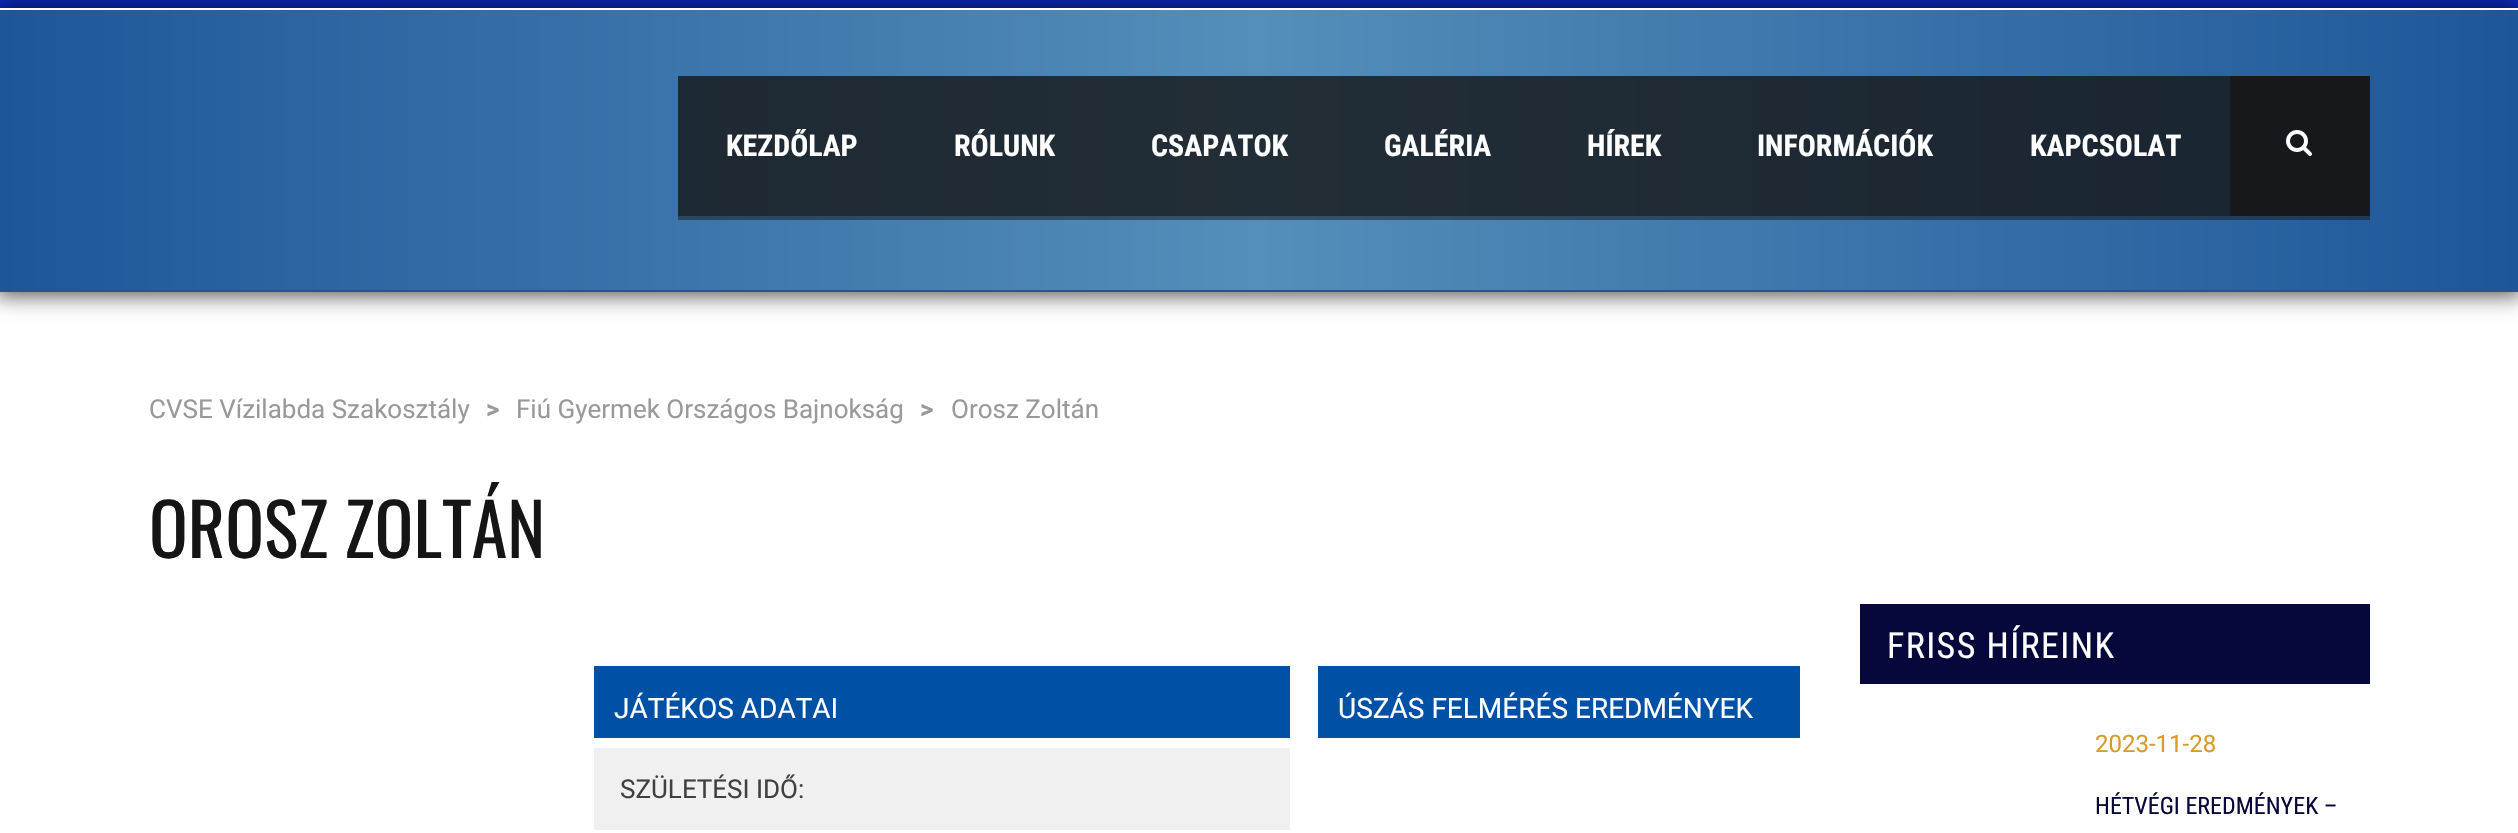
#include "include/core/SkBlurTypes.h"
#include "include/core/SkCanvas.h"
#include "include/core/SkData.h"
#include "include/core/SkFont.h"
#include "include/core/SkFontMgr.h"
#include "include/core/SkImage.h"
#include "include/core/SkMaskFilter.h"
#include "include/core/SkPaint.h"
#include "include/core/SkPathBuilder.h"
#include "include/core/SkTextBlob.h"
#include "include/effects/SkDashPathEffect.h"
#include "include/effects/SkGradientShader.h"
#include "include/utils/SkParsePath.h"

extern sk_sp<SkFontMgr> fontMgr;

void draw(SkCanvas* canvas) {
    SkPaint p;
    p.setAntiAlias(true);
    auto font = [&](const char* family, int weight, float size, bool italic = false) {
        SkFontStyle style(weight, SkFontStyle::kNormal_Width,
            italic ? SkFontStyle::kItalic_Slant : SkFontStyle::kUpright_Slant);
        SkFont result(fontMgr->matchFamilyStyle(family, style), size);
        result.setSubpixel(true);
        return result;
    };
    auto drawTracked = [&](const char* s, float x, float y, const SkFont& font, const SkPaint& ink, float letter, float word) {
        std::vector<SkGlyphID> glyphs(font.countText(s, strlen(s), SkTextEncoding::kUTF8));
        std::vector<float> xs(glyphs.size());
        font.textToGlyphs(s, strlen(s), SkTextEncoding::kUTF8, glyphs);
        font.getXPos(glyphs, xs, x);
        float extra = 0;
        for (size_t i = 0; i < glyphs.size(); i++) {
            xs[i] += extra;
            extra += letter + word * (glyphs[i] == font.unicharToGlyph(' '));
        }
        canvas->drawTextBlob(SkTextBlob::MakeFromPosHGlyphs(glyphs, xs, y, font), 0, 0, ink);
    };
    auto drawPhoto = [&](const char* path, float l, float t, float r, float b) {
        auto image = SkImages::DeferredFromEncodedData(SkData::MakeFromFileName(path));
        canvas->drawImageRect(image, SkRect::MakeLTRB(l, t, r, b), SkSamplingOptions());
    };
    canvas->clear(0xFF102DCE);
    p.setColor(0xFFFFFFFF);
    canvas->drawRect(SkRect::MakeLTRB(0, 292, 2518, 833), p);
    p.setColor(0xA6000000);
    p.setMaskFilter(SkMaskFilter::MakeBlur(kNormal_SkBlurStyle, 10));
    canvas->drawRect(SkRect::MakeLTRB(-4, 4, 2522, 296), p);
    p.setMaskFilter(nullptr);
    {
        const SkColor colors[] = {0xFF1E5799, 0xFF548EBA, 0xFF1E5799};
        const float stops[] = {0, 0.5f, 1};
        const SkPoint ends[] = {{0, 150}, {2518, 150}};
        p.setShader(SkGradientShader::MakeLinear(ends, colors, stops, 3, SkTileMode::kClamp));
        p.setAlpha(255);
    }
    canvas->drawRect(SkRect::MakeLTRB(0, 10, 2518, 290), p);
    p.setShader(nullptr);
    {
        const struct { float l, t, r, b; SkColor color; } items[] = {
            {0, 8, 2518, 10, 0xFFFFFFFF},
            {0, 290, 2518, 292, 0xFF1E5799},
            {678, 76, 2230, 216, 0xCC151515},
        };
        for (auto [l, t, r, b, color] : items) {
            p.setColor(color);
            canvas->drawRect(SkRect::MakeLTRB(l, t, r, b), p);
        }
    }
    auto font1 = font("Roboto Condensed", 700, 30);
    p.setColor(0xFFFFFFFF);
    {
        const struct { const char* s; float x, y; } items[] = {
            {"KEZDŐLAP", 726, 156},
            {"RÓLUNK", 954, 156},
            {"CSAPATOK", 1151, 156},
            {"GALÉRIA", 1384, 156},
            {"HÍREK", 1587, 156},
            {"INFORMÁCIÓK", 1757, 156},
            {"KAPCSOLAT", 2030, 156},
        };
        for (auto [s, x, y] : items) {
            canvas->drawString(s, x, y, font1, p);
        }
    }
    p.setColor(0xFF16181B);
    canvas->drawRect(SkRect::MakeLTRB(2230, 76, 2370, 216), p);
    drawPhoto("media/1.png", 2286, 130, 2312, 156);
    p.setColor(0x80151515);
    canvas->drawRect(SkRect::MakeLTRB(678, 216, 2370, 220), p);
    auto font2 = font("Roboto", 400, 26);
    p.setColor(0xFF999999);
    canvas->drawString("CVSE Vízilabda Szakosztály", 149, 418, font2, p);
    auto font3 = font("Roboto", 700, 26);
    drawTracked(">", 486, 418, font3, p, 1.4f, 0);
    canvas->drawString("Fiú Gyermek Országos Bajnokság", 516, 418, font2, p);
    drawTracked(">", 920, 418, font3, p, 1.4f, 0);
    canvas->drawString("Orosz Zoltán", 951, 418, font2, p);
    auto font4 = font("Oswald", 400, 72);
    p.setColor(0xFF151515);
    canvas->drawString("OROSZ ZOLTÁN", 149, 558, font4, p);
    p.setColor(0xFF0050A5);
    canvas->drawRect(SkRect::MakeLTRB(594, 666, 1290, 738), p);
    auto font5 = font("Roboto", 400, 28);
    p.setColor(0xFFFFFFFF);
    canvas->drawString("JÁTÉKOS ADATAI", 614, 718, font5, p);
    p.setColor(0xFFF0F0F0);
    canvas->drawRect(SkRect::MakeLTRB(594, 748, 1290, 830), p);
    p.setColor(0xFF404040);
    canvas->drawString("SZÜLETÉSI IDŐ:", 620, 798, font2, p);
    p.setColor(0xFF0050A5);
    canvas->drawRect(SkRect::MakeLTRB(1318, 666, 1800, 738), p);
    p.setColor(0xFFFFFFFF);
    canvas->drawString("ÚSZÁS FELMÉRÉS EREDMÉNYEK", 1338, 718, font5, p);
    p.setColor(0xFF06083B);
    canvas->drawRect(SkRect::MakeLTRB(1860, 604, 2370, 684), p);
    auto font6 = font("Roboto Condensed", 400, 36);
    p.setColor(0xFFFFFFFF);
    drawTracked("FRISS HÍREINK", 1887, 658, font6, p, 1.4f, 0);
    auto font7 = font("Roboto", 400, 24);
    p.setColor(0xFFDA9A29);
    canvas->drawString("2023-11-28", 2095, 752, font7, p);
    auto font8 = font("Roboto Condensed", 400, 24);
    p.setColor(0xFF06083B);
    canvas->drawString("HÉTVÉGI EREDMÉNYEK –", 2095, 814, font8, p);
}
